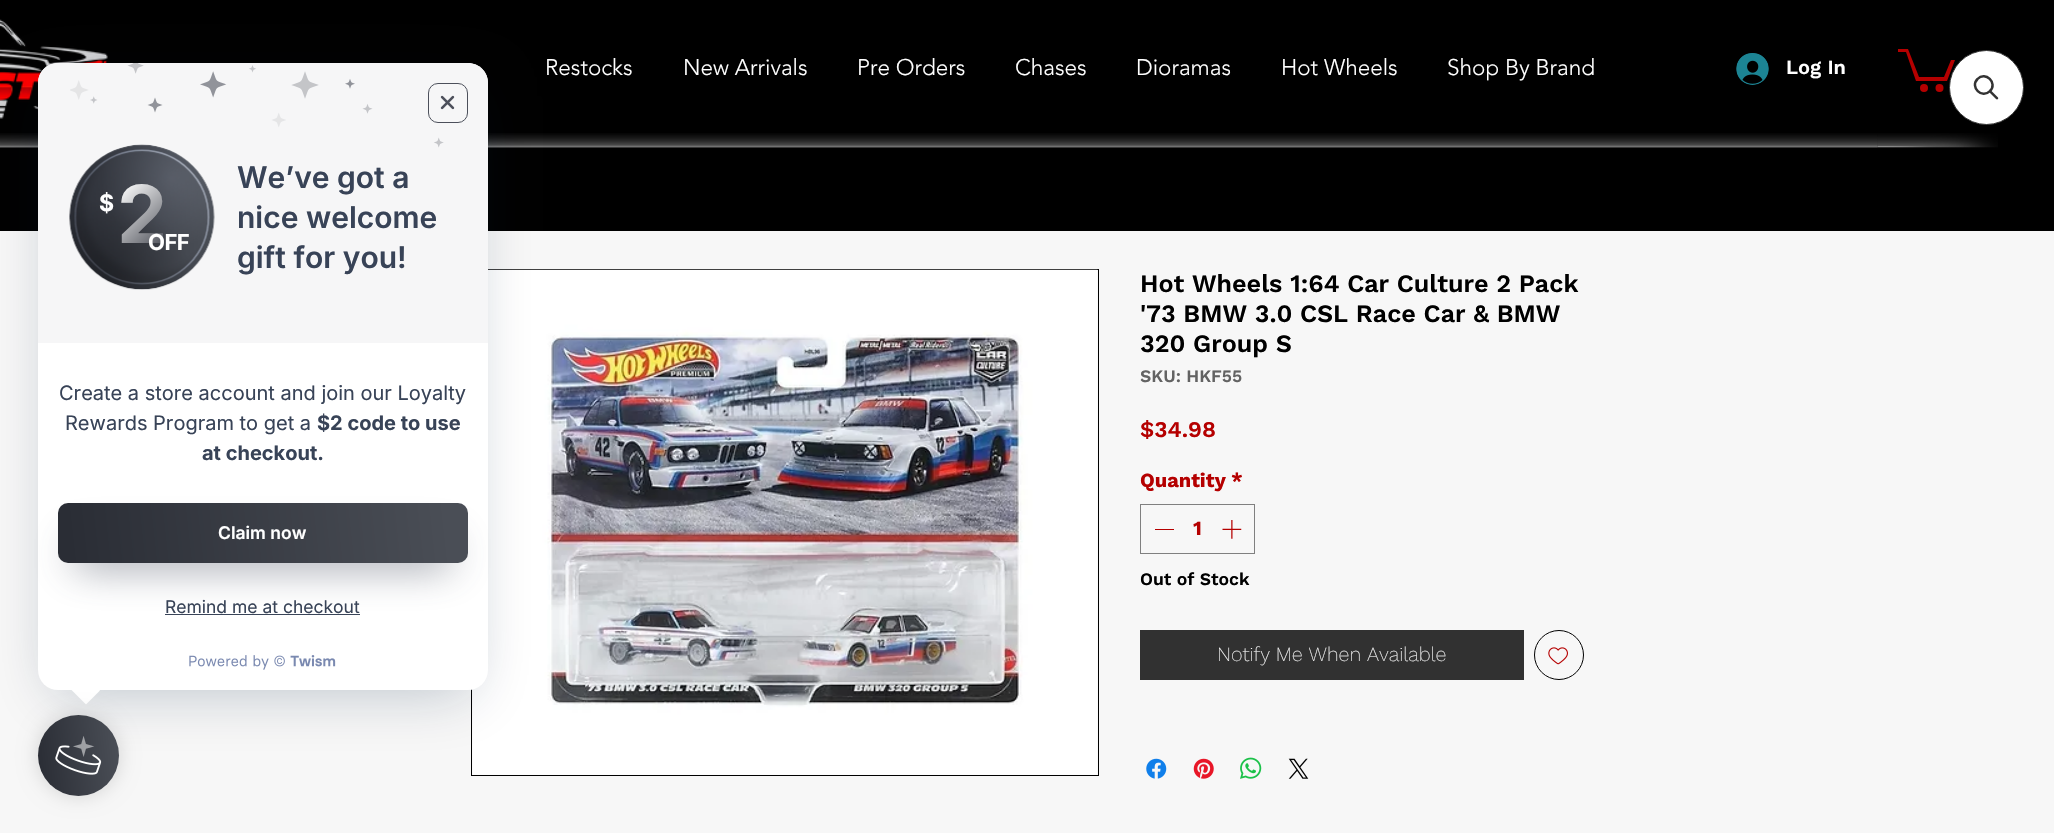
#include "include/core/SkBlurTypes.h"
#include "include/core/SkCanvas.h"
#include "include/core/SkData.h"
#include "include/core/SkFont.h"
#include "include/core/SkFontMgr.h"
#include "include/core/SkImage.h"
#include "include/core/SkMaskFilter.h"
#include "include/core/SkPaint.h"
#include "include/core/SkPathBuilder.h"
#include "include/core/SkTextBlob.h"
#include "include/effects/SkDashPathEffect.h"
#include "include/effects/SkGradientShader.h"
#include "include/utils/SkParsePath.h"

extern sk_sp<SkFontMgr> fontMgr;

void draw(SkCanvas* canvas) {
    SkPaint p;
    p.setAntiAlias(true);
    auto font = [&](const char* family, int weight, float size, bool italic = false) {
        SkFontStyle style(weight, SkFontStyle::kNormal_Width,
            italic ? SkFontStyle::kItalic_Slant : SkFontStyle::kUpright_Slant);
        SkFont result(fontMgr->matchFamilyStyle(family, style), size);
        result.setSubpixel(true);
        return result;
    };
    auto drawTracked = [&](const char* s, float x, float y, const SkFont& font, const SkPaint& ink, float letter, float word) {
        std::vector<SkGlyphID> glyphs(font.countText(s, strlen(s), SkTextEncoding::kUTF8));
        std::vector<float> xs(glyphs.size());
        font.textToGlyphs(s, strlen(s), SkTextEncoding::kUTF8, glyphs);
        font.getXPos(glyphs, xs, x);
        float extra = 0;
        for (size_t i = 0; i < glyphs.size(); i++) {
            xs[i] += extra;
            extra += letter + word * (glyphs[i] == font.unicharToGlyph(' '));
        }
        canvas->drawTextBlob(SkTextBlob::MakeFromPosHGlyphs(glyphs, xs, y, font), 0, 0, ink);
    };
    auto drawPhoto = [&](const char* path, float l, float t, float r, float b) {
        auto image = SkImages::DeferredFromEncodedData(SkData::MakeFromFileName(path));
        canvas->drawImageRect(image, SkRect::MakeLTRB(l, t, r, b), SkSamplingOptions());
    };
    canvas->clear(0xFFF7F7F7);
    p.setColor(0xFF000000);
    canvas->drawRect(SkRect::MakeLTRB(0, 0, 2054, 231), p);
    drawPhoto("media/6.png", 0, 19, 108, 119);
    drawPhoto("media/8.png", 0, 133, 1878, 148);
    p.setStyle(SkPaint::kStroke_Style);
    p.setStrokeWidth(1);
    canvas->drawRect(SkRect::MakeLTRB(471.5f, 269.5f, 1098.5f, 775.5f), p);
    drawPhoto("media/10.png", 472, 269, 1098, 775);
    p.setStyle(SkPaint::kFill_Style);
    p.setColor(0x42042143);
    p.setMaskFilter(SkMaskFilter::MakeBlur(kNormal_SkBlurStyle, 30));
    canvas->drawRoundRect(SkRect::MakeLTRB(54, 96, 471, 691), 4, 4, p);
    p.setMaskFilter(nullptr);
    p.setColor(0xFFFFFFFF);
    canvas->drawRoundRect(SkRect::MakeLTRB(38, 63, 488, 690), 20, 20, p);
    p.setColor(0xFFF6F6F7);
    canvas->drawPath(SkPathBuilder().moveTo(58, 63).lineTo(468, 63).cubicTo(479, 63, 488, 72, 488, 83).lineTo(488, 343).lineTo(38, 343).lineTo(38, 83).cubicTo(38, 72, 47, 63, 58, 63).close().detach(), p);
    drawPhoto("media/2.png", 70, 63, 444, 148);
    p.setStyle(SkPaint::kStroke_Style);
    p.setColor(0xFF4C505B);
    canvas->drawRoundRect(SkRect::MakeLTRB(428.5f, 83.5f, 467.5f, 122.5f), 9.5f, 9.5f, p);
    drawPhoto("media/1.png", 440, 95, 455, 110);
    drawPhoto("media/3.png", 69, 144, 215, 290);
    auto font1 = font("Inter", 700, 23);
    p.setStyle(SkPaint::kFill_Style);
    p.setColor(0xFFFFFFFF);
    canvas->drawString("$", 99, 211, font1, p);
    auto font2 = font("Inter", 700, 80);
    {
        const SkColor colors[] = {0xFFFFFFFF, 0xFF40434C};
        const float stops[] = {0.13f, 0.96f};
        const SkPoint ends[] = {{107, 181}, {174, 250}};
        p.setShader(SkGradientShader::MakeLinear(ends, colors, stops, 2, SkTileMode::kClamp));
        p.setAlpha(255);
    }
    drawTracked("2", 117, 243, font2, p, -3, 0);
    auto font3 = font("Inter", 700, 22);
    p.setShader(nullptr);
    p.setColor(0xFFFFFFFF);
    drawTracked("OFF", 148, 250, font3, p, -0.5f, 0);
    auto font4 = font("Inter", 600, 30);
    p.setColor(0xFF384357);
    {
        const struct { const char* s; float x, y; } items[] = {
            {"We’ve got a", 237, 188},
            {"nice welcome", 237, 228},
            {"gift for you!", 237, 268},
        };
        for (auto [s, x, y] : items) {
            canvas->drawString(s, x, y, font4, p);
        }
    }
    auto font5 = font("Inter", 400, 20);
    canvas->drawString("Create a store account and join our Loyalty", 59, 400, font5, p);
    canvas->drawString("Rewards Program to get a", 65, 430, font5, p);
    auto font6 = font("Inter", 700, 20);
    canvas->drawString("$2 code to use", 317, 430, font6, p);
    canvas->drawString("at checkout.", 202, 460, font6, p);
    canvas->drawRect(SkRect::MakeLTRB(165, 614, 360, 615), p);
    p.setColor(0x9E424B5C);
    p.setMaskFilter(SkMaskFilter::MakeBlur(kNormal_SkBlurStyle, 20));
    canvas->drawRect(SkRect::MakeLTRB(75, 541, 450, 566), p);
    p.setMaskFilter(nullptr);
    {
        const SkColor colors[] = {0xFF4A4E56, 0xFF2A2D35};
        const float stops[] = {0.05f, 0.97f};
        const SkPoint ends[] = {{468, 510}, {57, 555}};
        p.setShader(SkGradientShader::MakeLinear(ends, colors, stops, 2, SkTileMode::kClamp));
        p.setAlpha(255);
    }
    canvas->drawRoundRect(SkRect::MakeLTRB(58, 503, 468, 563), 10, 10, p);
    auto font7 = font("Inter", 600, 17.5f);
    p.setShader(nullptr);
    p.setColor(0xFFFFFFFF);
    canvas->drawString("Claim now", 218, 539, font7, p);
    auto font8 = font("Inter", 400, 17.5f);
    p.setColor(0xFF384357);
    canvas->drawString("Remind me at checkout", 165, 613, font8, p);
    drawPhoto("media/4.png", 189, 655, 336, 670);
    p.setColor(0xFFFFFFFF);
    canvas->drawPath(SkPathBuilder().moveTo(85, 675.5f).lineTo(100, 690.5f).lineTo(86, 704.5f).lineTo(71, 689.5f).close().detach(), p);
    p.setColor(0x26000000);
    p.setMaskFilter(SkMaskFilter::MakeBlur(kNormal_SkBlurStyle, 10));
    canvas->drawRoundRect(SkRect::MakeLTRB(38, 715, 119, 796), 40.5f, 40.5f, p);
    p.setMaskFilter(nullptr);
    {
        const SkColor colors[] = {0xFF4A4E56, 0xFF2A2D35};
        const float stops[] = {0.05f, 0.97f};
        const SkPoint ends[] = {{123, 751}, {34, 761}};
        p.setShader(SkGradientShader::MakeLinear(ends, colors, stops, 2, SkTileMode::kClamp));
        p.setAlpha(255);
    }
    canvas->drawCircle(78.5f, 755.5f, 40.5f, p);
    drawPhoto("media/5.png", 55, 736, 102, 775);
    auto font9 = font("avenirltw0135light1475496", 300, 22.5f);
    p.setShader(nullptr);
    p.setColor(0xFFFFFFFF);
    {
        const struct { const char* s; float x, y; } items[] = {
            {"Restocks", 545, 75},
            {"New Arrivals", 683, 75},
            {"Pre Orders", 857, 75},
            {"Chases", 1015, 75},
            {"Dioramas", 1136, 75},
            {"Hot Wheels", 1281, 75},
            {"Shop By Brand", 1447, 75},
        };
        for (auto [s, x, y] : items) {
            canvas->drawString(s, x, y, font9, p);
        }
    }
    drawPhoto("media/7.png", 1736, 53, 1769, 85);
    auto font10 = font("Work Sans", 600, 20);
    canvas->drawString("Log In", 1786, 74, font10, p);
    p.setColor(0xFFB50000);
    canvas->drawPath(SkPathBuilder().moveTo(1955, 60).lineTo(1947, 81).lineTo(1916, 81).lineTo(1906, 52).lineTo(1898, 52).lineTo(1898, 49).lineTo(1908, 49).lineTo(1919, 77).lineTo(1944, 77).lineTo(1951, 60).detach(), p);
    canvas->drawCircle(1939.5f, 88, 4, p);
    canvas->drawCircle(1924, 88, 4, p);
    drawPhoto("media/9.png", 1877, 133, 1998, 148);
    auto font11 = font("Work Sans", 600, 25);
    p.setColor(0xFF000000);
    {
        const struct { const char* s; float x, y; } items[] = {
            {"Hot Wheels 1:64 Car Culture 2 Pack", 1140, 292},
            {"'73 BMW 3.0 CSL Race Car & BMW", 1140, 322},
            {"320 Group S", 1140, 352},
        };
        for (auto [s, x, y] : items) {
            canvas->drawString(s, x, y, font11, p);
        }
    }
    auto font12 = font("Work Sans", 600, 17.5f);
    p.setColor(0xFF636363);
    canvas->drawString("SKU: HKF55", 1140, 382, font12, p);
    auto font13 = font("Work Sans", 600, 22.5f);
    p.setColor(0xFFB50000);
    canvas->drawString("$34.98", 1140, 437, font13, p);
    auto font14 = font("Work Sans", 700, 20);
    canvas->drawString("Quantity", 1140, 487, font14, p);
    canvas->drawString("*", 1231, 487, font14, p);
    p.setStyle(SkPaint::kStroke_Style);
    p.setColor(0xFF808080);
    canvas->drawRect(SkRect::MakeLTRB(1140.5f, 504.5f, 1254.5f, 553.5f), p);
    p.setStyle(SkPaint::kFill_Style);
    p.setColor(0xFFB50000);
    canvas->drawRect(SkRect::MakeLTRB(1155, 529, 1174, 530), p);
    canvas->drawString("1", 1193, 535, font14, p);
    drawPhoto("media/11.png", 1222, 520, 1242, 539);
    p.setColor(0xFF000000);
    canvas->drawString("Out of Stock", 1140, 585, font12, p);
    p.setColor(0xFF313131);
    canvas->drawRect(SkRect::MakeLTRB(1140, 630, 1524, 680), p);
    auto font15 = font("Work Sans", 200, 20);
    p.setColor(0xFFF7F7F7);
    canvas->drawString("Notify Me When Available", 1217, 661, font15, p);
    p.setStyle(SkPaint::kStroke_Style);
    p.setColor(0xFF000000);
    canvas->drawCircle(1559, 655, 24.5f, p);
    drawPhoto("media/12.png", 1548, 647, 1568, 665);
    drawPhoto("media/13.png", 1146, 758, 1167, 779);
    drawPhoto("media/14.png", 1193, 758, 1214, 779);
    drawPhoto("media/15.png", 1240, 757, 1262, 779);
    drawPhoto("media/16.png", 1288, 758, 1309, 779);
    p.setStyle(SkPaint::kFill_Style);
    p.setColor(0xFFFFFFFF);
    canvas->drawCircle(1986.5f, 87.5f, 37, p);
    p.setStyle(SkPaint::kStroke_Style);
    p.setColor(0xFF333333);
    canvas->drawCircle(1986.5f, 87.5f, 37, p);
    p.setStrokeWidth(2.5f);
    canvas->drawPath(SkPathBuilder().moveTo(1977.5f, 79).cubicTo(1985.5f, 70.5f, 1998, 83, 1990, 91).cubicTo(1982, 99.5f, 1969.5f, 87, 1977.5f, 79).close().detach(), p);
    p.setStyle(SkPaint::kFill_Style);
    canvas->drawPath(SkPathBuilder().moveTo(1989, 92).lineTo(1991, 90.5f).lineTo(1998, 97.5f).cubicTo(1999, 99, 1997, 100, 1996, 99).close().detach(), p);
}
